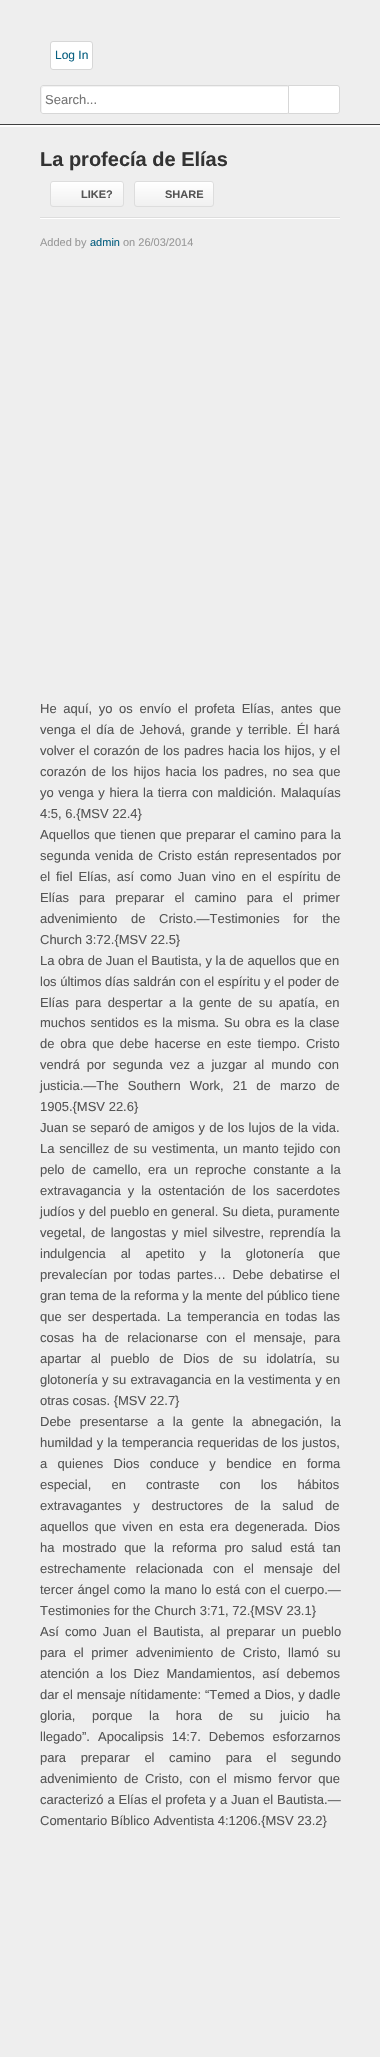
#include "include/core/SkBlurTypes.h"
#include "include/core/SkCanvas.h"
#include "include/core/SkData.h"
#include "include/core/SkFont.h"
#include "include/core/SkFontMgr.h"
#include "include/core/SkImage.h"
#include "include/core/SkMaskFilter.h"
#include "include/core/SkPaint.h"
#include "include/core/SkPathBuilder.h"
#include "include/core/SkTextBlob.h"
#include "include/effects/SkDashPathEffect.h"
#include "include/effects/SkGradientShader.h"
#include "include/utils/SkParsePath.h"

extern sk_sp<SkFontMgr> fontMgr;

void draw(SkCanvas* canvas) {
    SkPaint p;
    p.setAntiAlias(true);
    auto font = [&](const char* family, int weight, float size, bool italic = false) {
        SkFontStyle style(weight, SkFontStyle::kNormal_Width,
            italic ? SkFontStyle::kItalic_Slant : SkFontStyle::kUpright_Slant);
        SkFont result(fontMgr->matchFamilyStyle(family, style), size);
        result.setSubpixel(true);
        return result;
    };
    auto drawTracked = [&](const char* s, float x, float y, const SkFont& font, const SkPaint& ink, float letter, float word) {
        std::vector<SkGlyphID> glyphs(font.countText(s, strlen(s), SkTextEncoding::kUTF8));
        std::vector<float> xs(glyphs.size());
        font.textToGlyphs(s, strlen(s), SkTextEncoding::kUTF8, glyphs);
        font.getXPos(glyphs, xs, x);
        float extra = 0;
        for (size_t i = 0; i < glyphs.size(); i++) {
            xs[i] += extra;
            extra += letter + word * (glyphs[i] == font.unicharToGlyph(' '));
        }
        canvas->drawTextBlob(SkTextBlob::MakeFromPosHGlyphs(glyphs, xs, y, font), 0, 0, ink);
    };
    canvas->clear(0xFFEEEEEE);
    p.setColor(0xFFFFFFFF);
    canvas->drawRoundRect(SkRect::MakeLTRB(50.5f, 41.5f, 92.5f, 69.5f), 2.5f, 2.5f, p);
    p.setStyle(SkPaint::kStroke_Style);
    p.setStrokeWidth(1);
    p.setColor(0xFFD7D7D7);
    canvas->drawRoundRect(SkRect::MakeLTRB(50.5f, 41.5f, 92.5f, 69.5f), 2.5f, 2.5f, p);
    auto font1 = font("Liberation Sans", 400, 12);
    p.setStyle(SkPaint::kFill_Style);
    p.setColor(0xFF086081);
    canvas->drawString("Log In", 55, 59, font1, p);
    p.setColor(0xFFFFFFFF);
    canvas->drawRoundRect(SkRect::MakeLTRB(40, 85, 290, 114), 3, 3, p);
    p.setColor(0xFFF2F2F2);
    canvas->drawPath(SkPathBuilder().moveTo(44, 87).lineTo(289, 87).lineTo(287, 86).lineTo(43, 86).lineTo(41, 87).lineTo(41, 112).lineTo(42, 113).lineTo(42, 93).cubicTo(42, 92, 41, 87, 44, 87).close().detach(), p);
    p.setStyle(SkPaint::kStroke_Style);
    p.setColor(0xFFD7D7D7);
    canvas->drawRoundRect(SkRect::MakeLTRB(40.5f, 85.5f, 289.5f, 113.5f), 2.5f, 2.5f, p);
    auto font2 = font("Liberation Sans", 400, 13);
    p.setStyle(SkPaint::kFill_Style);
    p.setColor(0xFF757575);
    canvas->drawString("Search...", 45, 104, font2, p);
    p.setColor(0xFFFFFFFF);
    canvas->drawPath(SkPathBuilder().moveTo(288.5f, 85.5f).lineTo(337, 85.5f).cubicTo(338.5f, 85.5f, 339.5f, 86.5f, 339.5f, 88).lineTo(339.5f, 111).cubicTo(339.5f, 112.5f, 338.5f, 113.5f, 337, 113.5f).lineTo(288.5f, 113.5f).close().detach(), p);
    p.setStyle(SkPaint::kStroke_Style);
    p.setColor(0xFFD7D7D7);
    canvas->drawPath(SkPathBuilder().moveTo(288.5f, 85.5f).lineTo(337, 85.5f).cubicTo(338.5f, 85.5f, 339.5f, 86.5f, 339.5f, 88).lineTo(339.5f, 111).cubicTo(339.5f, 112.5f, 338.5f, 113.5f, 337, 113.5f).lineTo(288.5f, 113.5f).close().detach(), p);
    p.setStyle(SkPaint::kFill_Style);
    {
        const struct { float l, t, r, b; SkColor color; } items[] = {
            {0, 124, 380, 125, 0xFF404040},
            {0, 125, 380, 127, 0xFFFFFFFF},
            {40, 218, 340, 219, 0xFFFFFFFF},
            {40, 217, 340, 218, 0xFFDDDDDD},
        };
        for (auto [l, t, r, b, color] : items) {
            p.setColor(color);
            canvas->drawRect(SkRect::MakeLTRB(l, t, r, b), p);
        }
    }
    auto font3 = font("Liberation Sans", 700, 20);
    p.setColor(0xFF333333);
    canvas->drawString("La profecía de Elías", 40, 166, font3, p);
    canvas->save();
    canvas->clipPath(SkPathBuilder().moveTo(53, 181).lineTo(121, 181).cubicTo(122.5f, 181, 124, 182.5f, 124, 184).lineTo(124, 204).cubicTo(124, 205.5f, 122.5f, 207, 121, 207).lineTo(53, 207).cubicTo(51.5f, 207, 50, 205.5f, 50, 204).lineTo(50, 184).cubicTo(50, 182.5f, 51.5f, 181, 53, 181).close().detach(), true);
    {
        const SkColor colors[] = {0xFFFFFFFF, 0xFFF0F0F0};
        const float stops[] = {0, 1};
        const SkPoint ends[] = {{87, 182}, {87, 206}};
        p.setShader(SkGradientShader::MakeLinear(ends, colors, stops, 2, SkTileMode::kClamp));
        p.setAlpha(255);
    }
    canvas->drawRect(SkRect::MakeLTRB(50, 182, 124, 206), p);
    canvas->restore();
    p.setStyle(SkPaint::kStroke_Style);
    p.setShader(nullptr);
    p.setColor(0xFFDDDDDD);
    canvas->drawRoundRect(SkRect::MakeLTRB(50.5f, 181.5f, 123.5f, 206.5f), 2.5f, 2.5f, p);
    auto font4 = font("Liberation Sans", 700, 11);
    p.setStyle(SkPaint::kFill_Style);
    p.setColor(0xFF555555);
    canvas->drawString("LIKE?", 81, 198, font4, p);
    canvas->save();
    canvas->clipPath(SkPathBuilder().moveTo(137, 181).lineTo(211, 181).cubicTo(212.5f, 181, 214, 182.5f, 214, 184).lineTo(214, 204).cubicTo(214, 205.5f, 212.5f, 207, 211, 207).lineTo(137, 207).cubicTo(135.5f, 207, 134, 205.5f, 134, 204).lineTo(134, 184).cubicTo(134, 182.5f, 135.5f, 181, 137, 181).close().detach(), true);
    {
        const SkColor colors[] = {0xFFFFFFFF, 0xFFF0F0F0};
        const float stops[] = {0, 1};
        const SkPoint ends[] = {{174, 182}, {174, 206}};
        p.setShader(SkGradientShader::MakeLinear(ends, colors, stops, 2, SkTileMode::kClamp));
        p.setAlpha(255);
    }
    canvas->drawRect(SkRect::MakeLTRB(134, 182, 214, 206), p);
    canvas->restore();
    p.setStyle(SkPaint::kStroke_Style);
    p.setShader(nullptr);
    p.setColor(0xFFDDDDDD);
    canvas->drawRoundRect(SkRect::MakeLTRB(134.5f, 181.5f, 213.5f, 206.5f), 2.5f, 2.5f, p);
    p.setStyle(SkPaint::kFill_Style);
    p.setColor(0xFF555555);
    canvas->drawString("SHARE", 165, 198, font4, p);
    auto font5 = font("Liberation Sans", 400, 11);
    p.setColor(0xFF999999);
    canvas->drawString("Added by", 40, 246, font5, p);
    p.setColor(0xFF086081);
    canvas->drawString("admin", 90, 246, font5, p);
    p.setColor(0xFF999999);
    canvas->drawString("on 26/03/2014", 123, 246, font5, p);
    p.setColor(0xFF555555);
    drawTracked("He aquí, yo os envío el profeta Elías, antes que", 40, 713, font2, p, 0, 3);
    drawTracked("venga el día de Jehová, grande y terrible. Él hará", 40, 734, font2, p, 0, 1.75f);
    drawTracked("volver el corazón de los padres hacia los hijos, y el", 40, 755, font2, p, 0, 0.75f);
    drawTracked("corazón de los hijos hacia los padres, no sea que", 40, 776, font2, p, 0, 1.75f);
    drawTracked("yo venga y hiera la tierra con maldición. Malaquías", 40, 797, font2, p, 0, 1);
    canvas->drawString("4:5, 6.{MSV 22.4}", 40, 818, font2, p);
    drawTracked("Aquellos que tienen que preparar el camino para la", 40, 839, font2, p, 0, 0.75f);
    drawTracked("segunda venida de Cristo están representados por", 40, 860, font2, p, 0, 1.5f);
    drawTracked("el fiel Elías, así como Juan vino en el espíritu de", 40, 881, font2, p, 0, 2.25f);
    drawTracked("Elías para preparar el camino para el primer", 40, 902, font2, p, 0, 6.5f);
    drawTracked("advenimiento de Cristo.—Testimonies for the", 40, 923, font2, p, 0, 10);
    {
        const struct { const char* s; float x, y; } items[] = {
            {"Church 3:72.{MSV 22.5}", 40, 944},
            {"La obra de Juan el Bautista, y la de aquellos que en", 40, 965},
            {"los últimos días saldrán con el espíritu y el poder de", 40, 986},
        };
        for (auto [s, x, y] : items) {
            canvas->drawString(s, x, y, font2, p);
        }
    }
    drawTracked("Elías para despertar a la gente de su apatía, en", 40, 1007, font2, p, 0, 2.75f);
    drawTracked("muchos sentidos es la misma. Su obra es la clase", 40, 1027, font2, p, 0, 1.25f);
    drawTracked("de obra que debe hacerse en este tiempo. Cristo", 40, 1048, font2, p, 0, 2.25f);
    drawTracked("vendrá por segunda vez a juzgar al mundo con", 40, 1069, font2, p, 0, 3.5f);
    drawTracked("justicia.—The Southern Work, 21 de marzo de", 40, 1090, font2, p, 0, 5.5f);
    canvas->drawString("1905.{MSV 22.6}", 40, 1111, font2, p);
    drawTracked("Juan se separó de amigos y de los lujos de la vida.", 40, 1132, font2, p, 0, 0.5f);
    drawTracked("La sencillez de su vestimenta, un manto tejido con", 40, 1153, font2, p, 0, 1.25f);
    drawTracked("pelo de camello, era un reproche constante a la", 40, 1174, font2, p, 0, 3.25f);
    drawTracked("extravagancia y la ostentación de los sacerdotes", 40, 1195, font2, p, 0, 3.25f);
    drawTracked("judíos y del pueblo en general. Su dieta, puramente", 40, 1216, font2, p, 0, 0.25f);
    drawTracked("vegetal, de langostas y miel silvestre, reprendía la", 40, 1237, font2, p, 0, 1.75f);
    drawTracked("indulgencia al apetito y la glotonería que", 40, 1258, font2, p, 0, 11.25f);
    drawTracked("prevalecían por todas partes… Debe debatirse el", 40, 1279, font2, p, 0, 2.75f);
    canvas->drawString("gran tema de la reforma y la mente del público tiene", 40, 1300, font2, p);
    drawTracked("que ser despertada. La temperancia en todas las", 40, 1321, font2, p, 0, 2.5f);
    drawTracked("cosas ha de relacionarse con el mensaje, para", 40, 1342, font2, p, 0, 4.5f);
    drawTracked("apartar al pueblo de Dios de su idolatría, su", 40, 1363, font2, p, 0, 6);
    drawTracked("glotonería y su extravagancia en la vestimenta y en", 40, 1384, font2, p, 0, 0.5f);
    canvas->drawString("otras cosas. {MSV 22.7}", 40, 1405, font2, p);
    drawTracked("Debe presentarse a la gente la abnegación, la", 40, 1426, font2, p, 0, 5);
    drawTracked("humildad y la temperancia requeridas de los justos,", 40, 1447, font2, p, 0, 0.5f);
    drawTracked("a quienes Dios conduce y bendice en forma", 40, 1468, font2, p, 0, 6.75f);
    drawTracked("especial, en contraste con los hábitos", 40, 1489, font2, p, 0, 16.5f);
    drawTracked("extravagantes y destructores de la salud de", 40, 1510, font2, p, 0, 8);
    drawTracked("aquellos que viven en esta era degenerada. Dios", 40, 1531, font2, p, 0, 2.5f);
    drawTracked("ha mostrado que la reforma pro salud está tan", 40, 1552, font2, p, 0, 4.25f);
    drawTracked("estrechamente relacionada con el mensaje del", 40, 1573, font2, p, 0, 6.25f);
    drawTracked("tercer ángel como la mano lo está con el cuerpo.—", 40, 1594, font2, p, 0, 0.75f);
    canvas->drawString("Testimonies for the Church 3:71, 72.{MSV 23.1}", 40, 1615, font2, p);
    drawTracked("Así como Juan el Bautista, al preparar un pueblo", 40, 1636, font2, p, 0, 2.5f);
    drawTracked("para el primer advenimiento de Cristo, llamó su", 40, 1657, font2, p, 0, 4);
    drawTracked("atención a los Diez Mandamientos, así debemos", 40, 1678, font2, p, 0, 3.25f);
    drawTracked("dar el mensaje nítidamente: “Temed a Dios, y dadle", 40, 1699, font2, p, 0, 0.25f);
    drawTracked("gloria, porque la hora de su juicio ha", 40, 1720, font2, p, 0, 13);
    drawTracked("llegado”. Apocalipsis 14:7. Debemos esforzarnos", 40, 1741, font2, p, 0, 4.5f);
    drawTracked("para preparar el camino para el segundo", 40, 1762, font2, p, 0, 11);
    drawTracked("advenimiento de Cristo, con el mismo fervor que", 40, 1783, font2, p, 0, 3);
    drawTracked("caracterizó a Elías el profeta y a Juan el Bautista.—", 40, 1804, font2, p, 0, 0.25f);
    canvas->drawString("Comentario Bíblico Adventista 4:1206.{MSV 23.2}", 40, 1825, font2, p);
}
